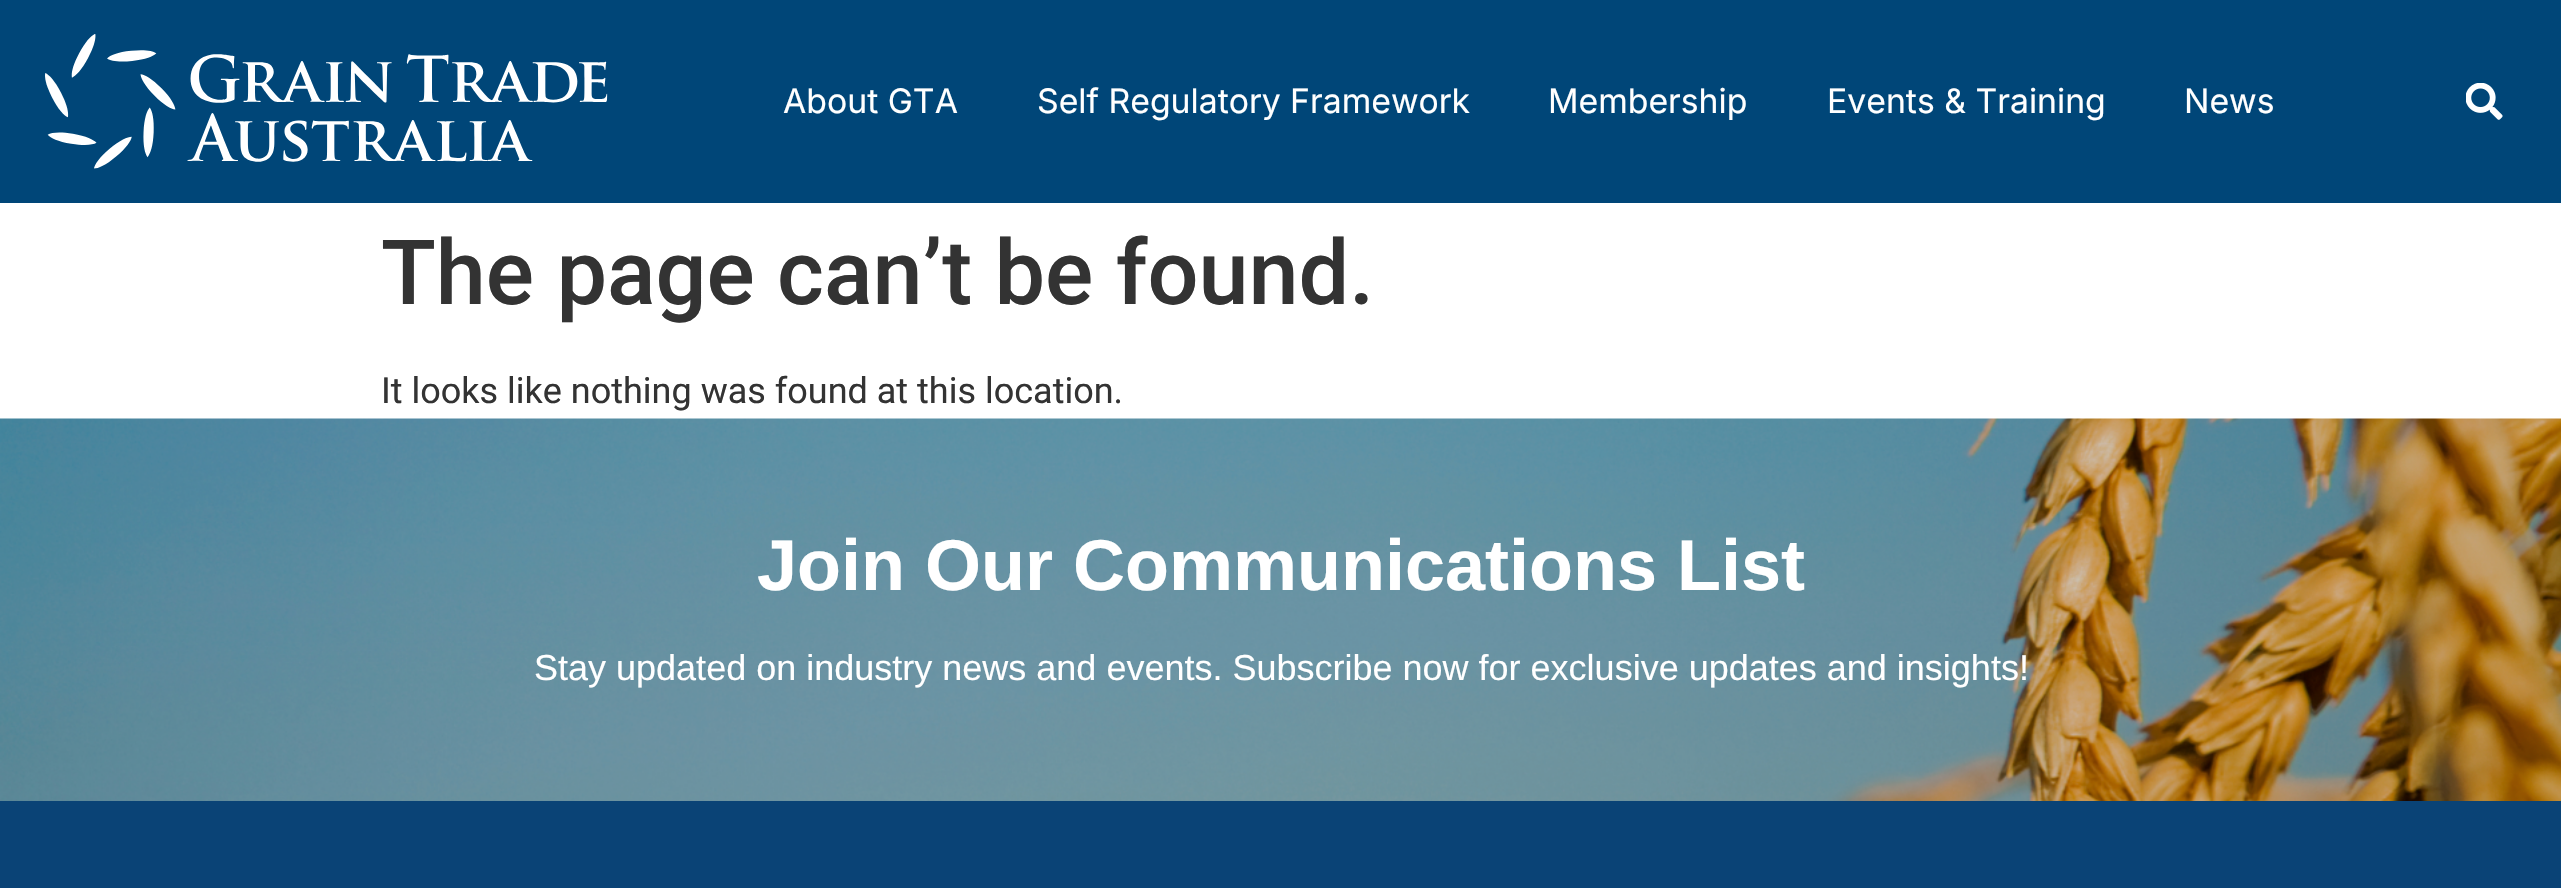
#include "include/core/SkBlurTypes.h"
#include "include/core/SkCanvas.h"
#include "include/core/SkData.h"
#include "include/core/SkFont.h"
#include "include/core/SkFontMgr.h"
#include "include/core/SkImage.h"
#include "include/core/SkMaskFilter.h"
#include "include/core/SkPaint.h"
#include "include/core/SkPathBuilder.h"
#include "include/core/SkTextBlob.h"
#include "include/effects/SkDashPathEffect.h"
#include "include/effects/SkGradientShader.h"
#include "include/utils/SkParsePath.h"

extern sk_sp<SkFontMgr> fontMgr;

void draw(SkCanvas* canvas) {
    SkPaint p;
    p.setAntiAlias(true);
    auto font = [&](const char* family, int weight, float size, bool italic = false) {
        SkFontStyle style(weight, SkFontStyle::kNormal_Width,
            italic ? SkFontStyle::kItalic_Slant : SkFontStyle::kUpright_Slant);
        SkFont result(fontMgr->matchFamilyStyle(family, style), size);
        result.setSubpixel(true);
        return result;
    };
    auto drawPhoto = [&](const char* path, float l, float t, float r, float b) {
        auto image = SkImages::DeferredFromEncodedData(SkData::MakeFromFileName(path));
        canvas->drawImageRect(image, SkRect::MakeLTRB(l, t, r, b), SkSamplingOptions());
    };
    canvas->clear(0xFFFFFFFF);
    p.setColor(0xFF004678);
    canvas->drawRect(SkRect::MakeLTRB(0, 0, 2561, 203), p);
    drawPhoto("media/1.png", 45, 34, 608, 169);
    auto font1 = font("Inter", 400, 33.75f);
    p.setColor(0xFFFFFFFF);
    {
        const struct { const char* s; float x, y; } items[] = {
            {"About GTA", 783, 113},
            {"Self Regulatory Framework", 1037, 113},
            {"Membership", 1548, 113},
            {"Events & Training", 1827, 113},
            {"News", 2184, 113},
        };
        for (auto [s, x, y] : items) {
            canvas->drawString(s, x, y, font1, p);
        }
    }
    drawPhoto("media/2.png", 2466, 83, 2503, 120);
    auto font2 = font("Roboto", 500, 90);
    p.setColor(0xFF333333);
    canvas->drawString("The page can’t be found.", 381, 304, font2, p);
    auto font3 = font("Roboto", 400, 36);
    canvas->drawString("It looks like nothing was found at this location.", 381, 403, font3, p);
    drawPhoto("media/3.png", 0, 418, 2561, 801);
    auto font4 = font("Liberation Sans", 700, 72);
    p.setColor(0xFFFFFFFF);
    canvas->drawString("Join Our Communications List", 757, 590, font4, p);
    auto font5 = font("Liberation Sans", 400, 36);
    canvas->drawString("Stay updated on industry news and events. Subscribe now for exclusive updates and insights!", 534, 680, font5, p);
    p.setColor(0xFF0A4376);
    canvas->drawRect(SkRect::MakeLTRB(0, 801, 2561, 888), p);
}
